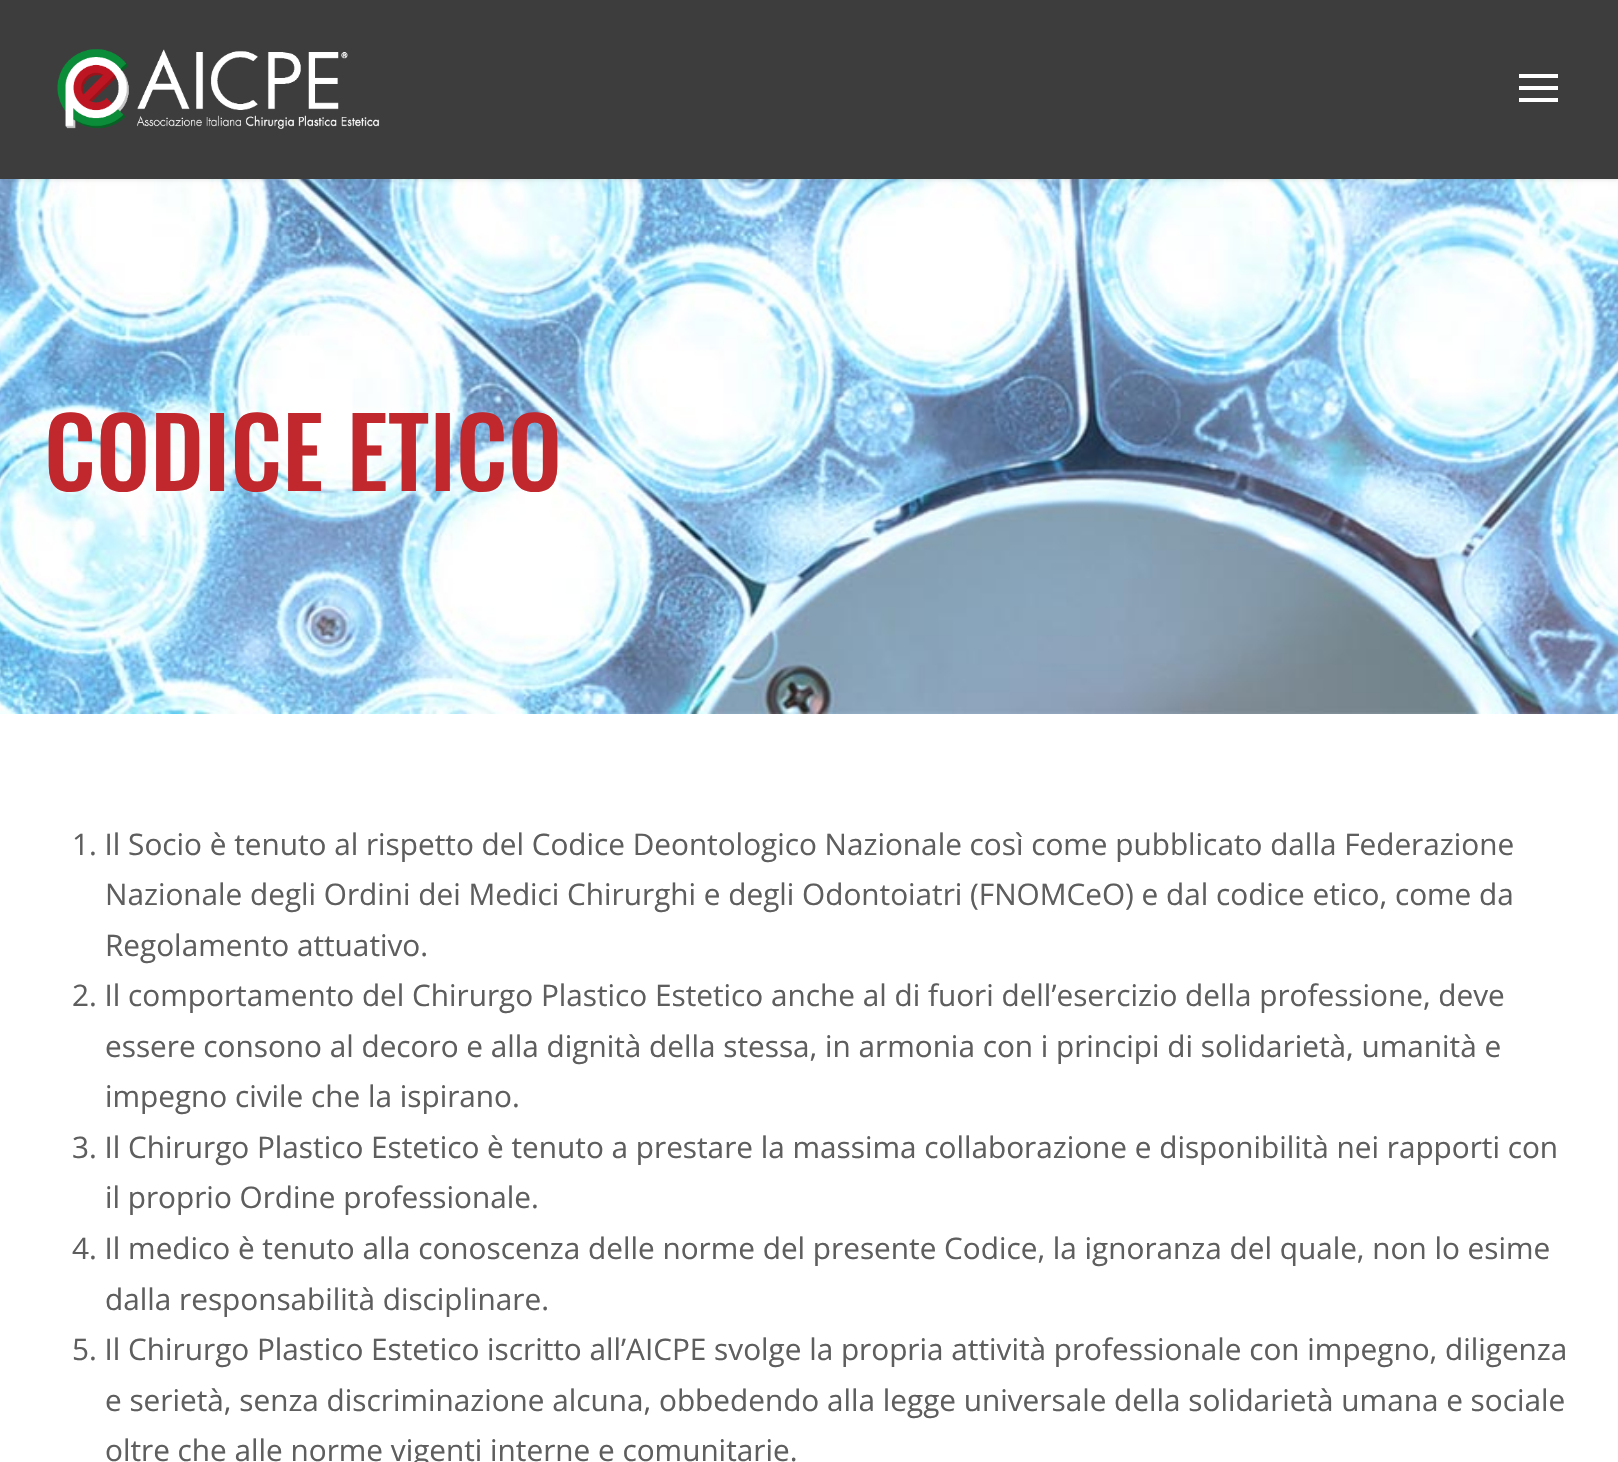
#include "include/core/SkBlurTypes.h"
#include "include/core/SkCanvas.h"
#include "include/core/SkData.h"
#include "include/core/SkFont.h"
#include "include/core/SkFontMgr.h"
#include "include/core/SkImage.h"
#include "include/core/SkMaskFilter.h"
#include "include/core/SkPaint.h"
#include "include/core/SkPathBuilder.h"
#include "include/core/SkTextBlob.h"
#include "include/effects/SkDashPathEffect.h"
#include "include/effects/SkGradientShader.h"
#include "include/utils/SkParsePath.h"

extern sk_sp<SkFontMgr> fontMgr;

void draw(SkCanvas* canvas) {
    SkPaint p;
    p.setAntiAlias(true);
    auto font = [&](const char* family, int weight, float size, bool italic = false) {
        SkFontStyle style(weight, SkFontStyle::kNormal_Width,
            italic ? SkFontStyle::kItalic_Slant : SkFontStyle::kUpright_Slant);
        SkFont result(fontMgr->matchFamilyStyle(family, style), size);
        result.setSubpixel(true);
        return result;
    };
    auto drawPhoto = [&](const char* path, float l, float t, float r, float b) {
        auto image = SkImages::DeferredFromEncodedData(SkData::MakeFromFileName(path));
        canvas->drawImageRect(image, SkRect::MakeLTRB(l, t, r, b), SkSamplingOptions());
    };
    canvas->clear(0xFFFFFFFF);
    drawPhoto("media/2.png", 0, 179, 1618, 714);
    p.setColor(0x1A000000);
    p.setMaskFilter(SkMaskFilter::MakeBlur(kNormal_SkBlurStyle, 2));
    canvas->drawRect(SkRect::MakeLTRB(0, 2, 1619, 180), p);
    p.setMaskFilter(nullptr);
    p.setColor(0xFF3D3D3D);
    canvas->drawRect(SkRect::MakeLTRB(0, 0, 1618, 179), p);
    drawPhoto("media/1.png", 57, 49, 380, 129);
    {
        const struct { float l, t, r, b; SkColor color; } items[] = {
            {1519, 74, 1558, 78, 0xFFFFFFFF},
            {1519, 86, 1558, 90, 0xFFFFFFFF},
            {1519, 98, 1558, 102, 0xFFFFFFFF},
        };
        for (auto [l, t, r, b, color] : items) {
            p.setColor(color);
            canvas->drawRect(SkRect::MakeLTRB(l, t, r, b), p);
        }
    }
    auto font1 = font("Oswald", 500, 96.25f);
    p.setColor(0xFFC1282E);
    canvas->drawString("CODICE ETICO", 44, 491, font1, p);
    auto font2 = font("Open Sans", 400, 29.75f);
    p.setColor(0xFF5E5E5E);
    {
        const struct { const char* s; float x, y; } items[] = {
            {"1. Il Socio è tenuto al rispetto del Codice Deontologico Nazionale così come pubblicato dalla Federazione", 72, 855},
            {"Nazionale degli Ordini dei Medici Chirurghi e degli Odontoiatri (FNOMCeO) e dal codice etico, come da", 105, 905},
            {"Regolamento attuativo.", 105, 956},
            {"2. Il comportamento del Chirurgo Plastico Estetico anche al di fuori dell’esercizio della professione, deve", 72, 1006},
            {"essere consono al decoro e alla dignità della stessa, in armonia con i principi di solidarietà, umanità e", 105, 1057},
            {"impegno civile che la ispirano.", 105, 1107},
            {"3. Il Chirurgo Plastico Estetico è tenuto a prestare la massima collaborazione e disponibilità nei rapporti con", 72, 1158},
            {"il proprio Ordine professionale.", 105, 1208},
            {"4. Il medico è tenuto alla conoscenza delle norme del presente Codice, la ignoranza del quale, non lo esime", 72, 1259},
            {"dalla responsabilità disciplinare.", 105, 1310},
            {"5. Il Chirurgo Plastico Estetico iscritto all’AICPE svolge la propria attività professionale con impegno, diligenza", 72, 1360},
            {"e serietà, senza discriminazione alcuna, obbedendo alla legge universale della solidarietà umana e sociale", 105, 1411},
            {"oltre che alle norme vigenti interne e comunitarie.", 105, 1461},
        };
        for (auto [s, x, y] : items) {
            canvas->drawString(s, x, y, font2, p);
        }
    }
}
